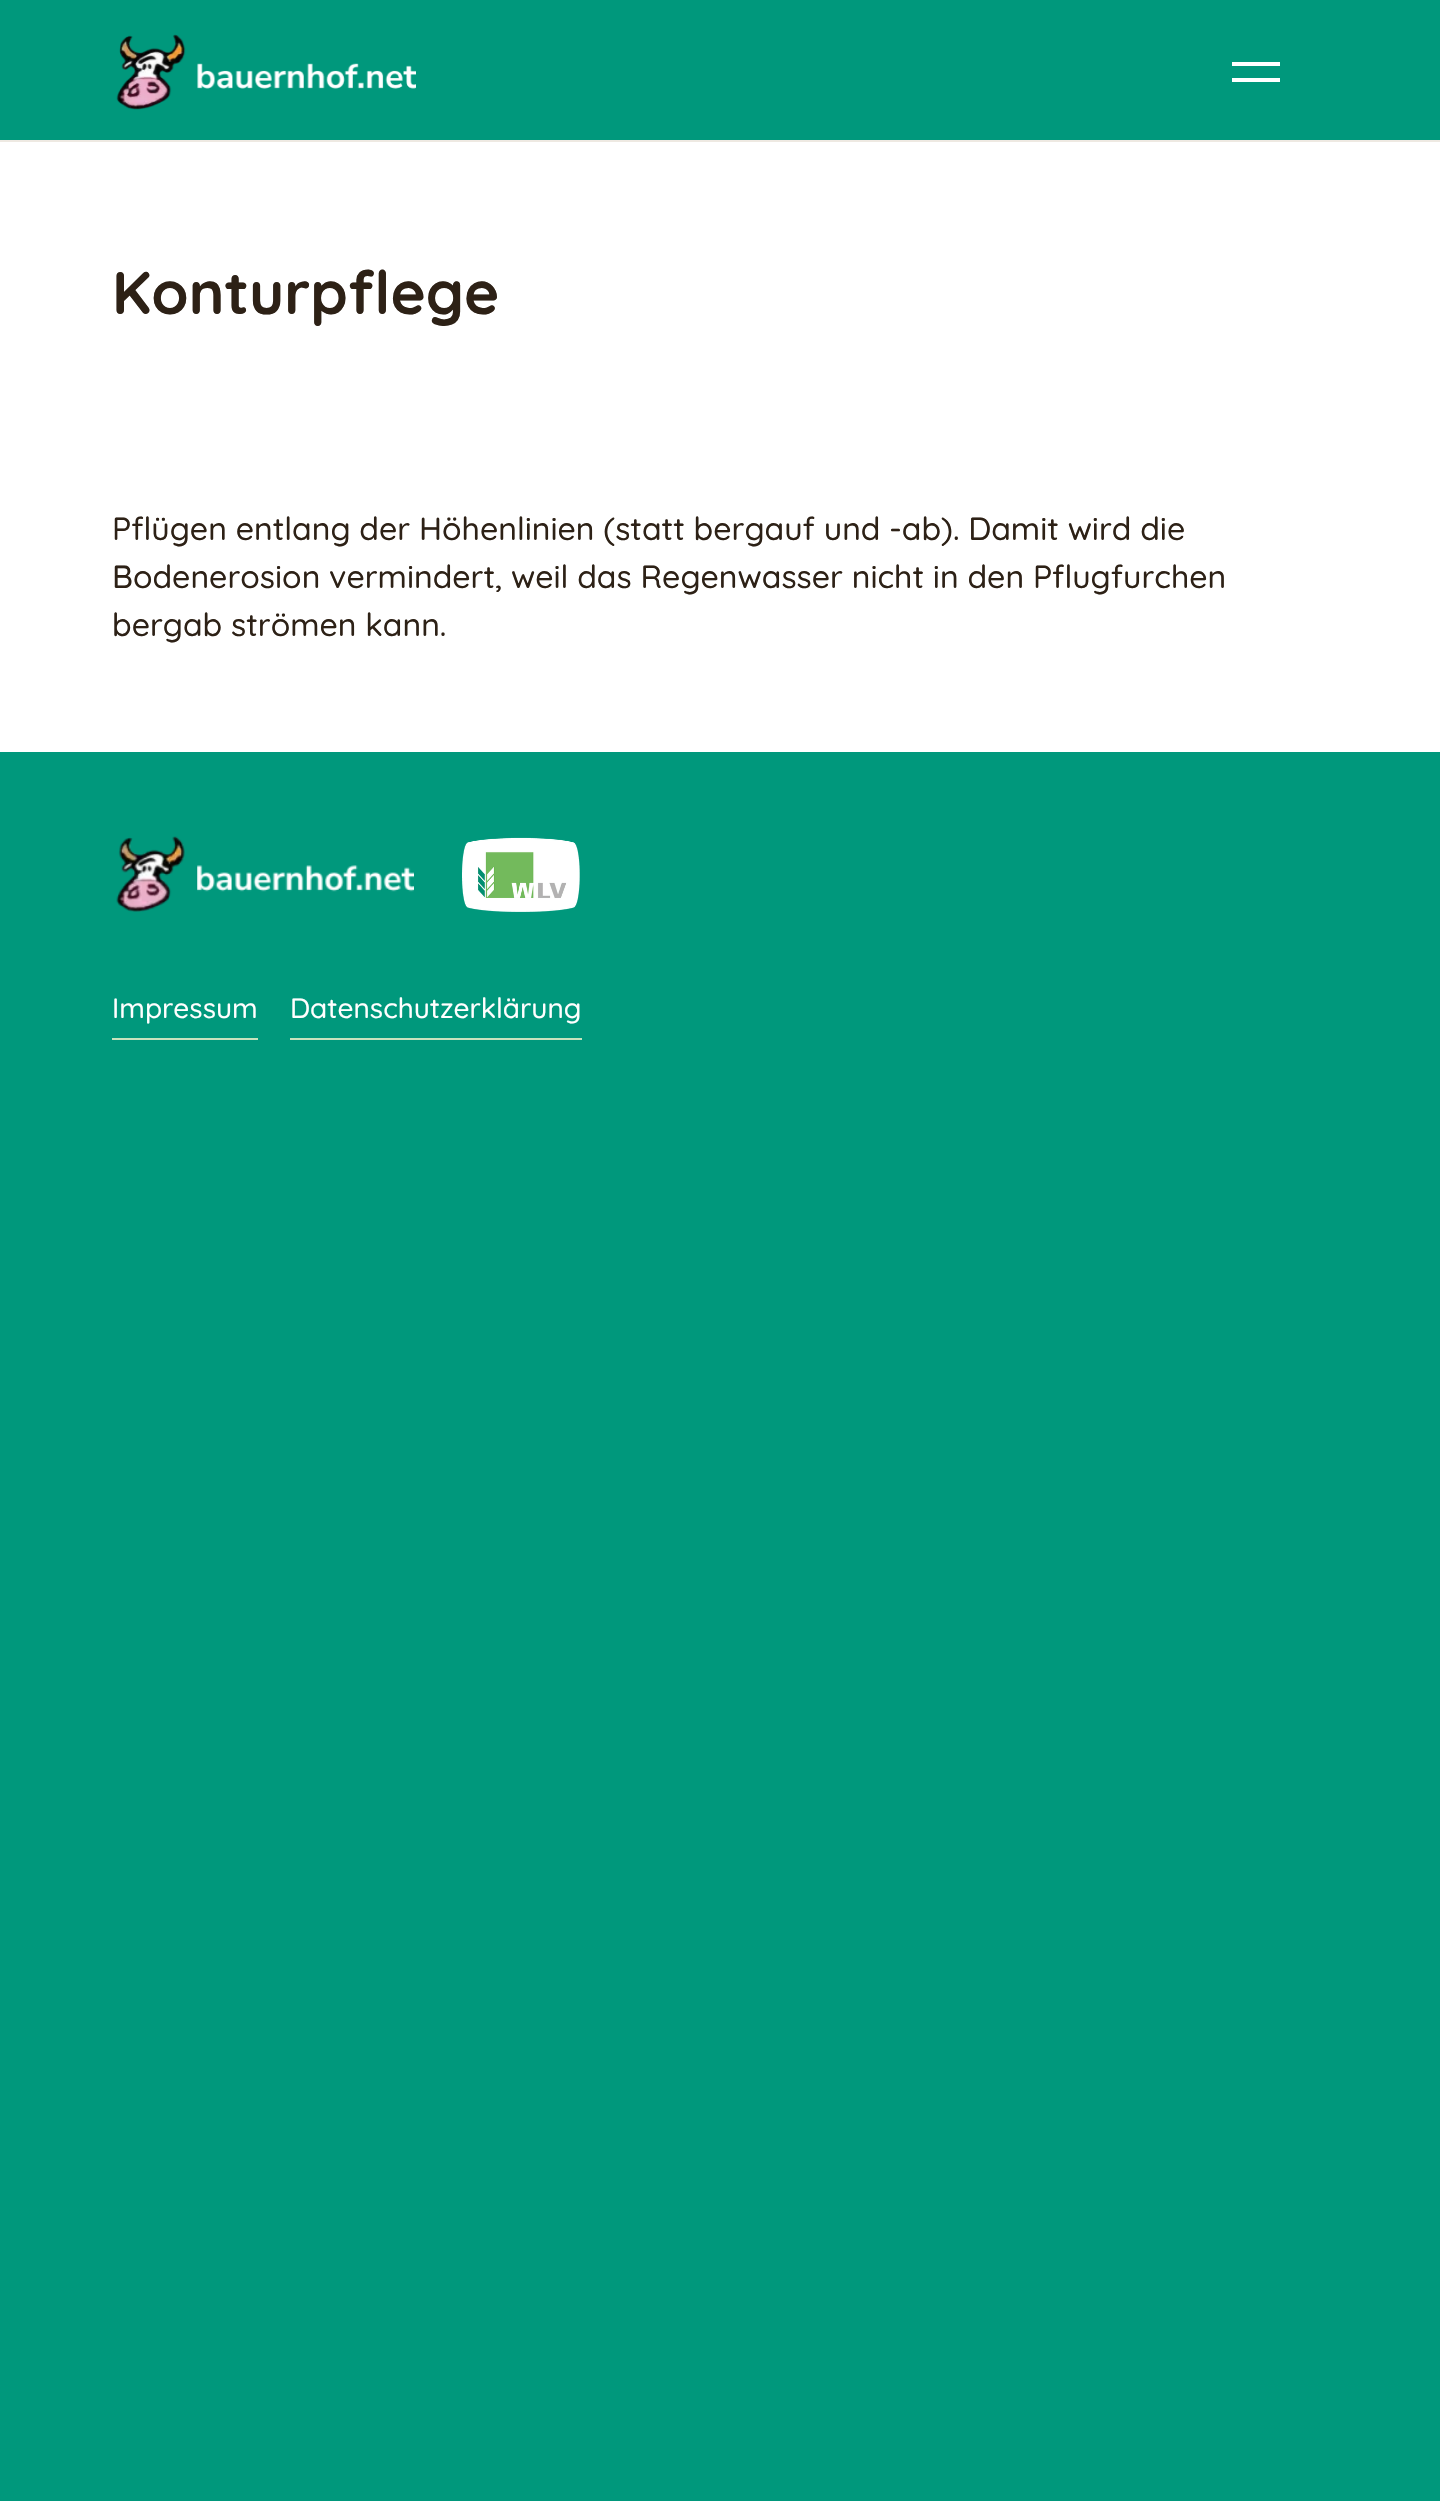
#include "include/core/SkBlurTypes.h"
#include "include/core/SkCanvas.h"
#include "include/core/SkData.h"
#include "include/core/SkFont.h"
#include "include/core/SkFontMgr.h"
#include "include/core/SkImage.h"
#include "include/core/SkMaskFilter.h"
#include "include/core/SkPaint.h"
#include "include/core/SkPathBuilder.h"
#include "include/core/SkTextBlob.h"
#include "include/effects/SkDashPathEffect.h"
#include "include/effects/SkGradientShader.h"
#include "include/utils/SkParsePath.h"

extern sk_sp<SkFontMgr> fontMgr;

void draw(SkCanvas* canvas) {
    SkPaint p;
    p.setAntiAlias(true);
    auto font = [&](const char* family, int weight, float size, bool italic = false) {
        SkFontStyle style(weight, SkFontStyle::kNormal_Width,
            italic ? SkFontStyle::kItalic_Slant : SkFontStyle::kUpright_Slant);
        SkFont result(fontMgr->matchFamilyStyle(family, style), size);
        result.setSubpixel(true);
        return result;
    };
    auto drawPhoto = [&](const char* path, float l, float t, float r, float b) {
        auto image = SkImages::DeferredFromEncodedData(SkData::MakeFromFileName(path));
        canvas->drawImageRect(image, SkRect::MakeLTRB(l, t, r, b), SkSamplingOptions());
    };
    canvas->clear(0xFF00987C);
    p.setColor(0xFFFFFFFF);
    canvas->drawRect(SkRect::MakeLTRB(0, 142, 1440, 752), p);
    p.setColor(0xFFEEE9E2);
    canvas->drawRect(SkRect::MakeLTRB(0, 140, 1440, 142), p);
    drawPhoto("media/1.png", 116, 34, 416, 110);
    p.setColor(0xFFFFFFFF);
    canvas->drawRect(SkRect::MakeLTRB(1232, 62, 1280, 66), p);
    canvas->drawRect(SkRect::MakeLTRB(1232, 78, 1280, 82), p);
    auto font1 = font("Quicksand", 300, 60);
    p.setColor(0xFF2D2116);
    canvas->drawString("Konturpflege", 112, 314, font1, p);
    auto font2 = font("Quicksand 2", 300, 32);
    {
        const struct { const char* s; float x, y; } items[] = {
            {"Pflügen entlang der Höhenlinien (statt bergauf und -ab). Damit wird die", 112, 540},
            {"Bodenerosion vermindert, weil das Regenwasser nicht in den Pflugfurchen", 112, 588},
            {"bergab strömen kann.", 112, 636},
        };
        for (auto [s, x, y] : items) {
            canvas->drawString(s, x, y, font2, p);
        }
    }
    drawPhoto("media/2.png", 116, 836, 414, 912);
    drawPhoto("media/3.png", 462, 837, 580, 912);
    auto font3 = font("Quicksand 2", 300, 28);
    p.setColor(0xFFFFFFFF);
    canvas->drawString("Impressum", 112, 1018, font3, p);
    p.setColor(0xFFC7E3BD);
    canvas->drawRect(SkRect::MakeLTRB(112, 1038, 258, 1040), p);
    p.setColor(0xFFFFFFFF);
    canvas->drawString("Datenschutzerklärung", 290, 1018, font3, p);
    p.setColor(0xFFC7E3BD);
    canvas->drawRect(SkRect::MakeLTRB(290, 1038, 582, 1040), p);
}
